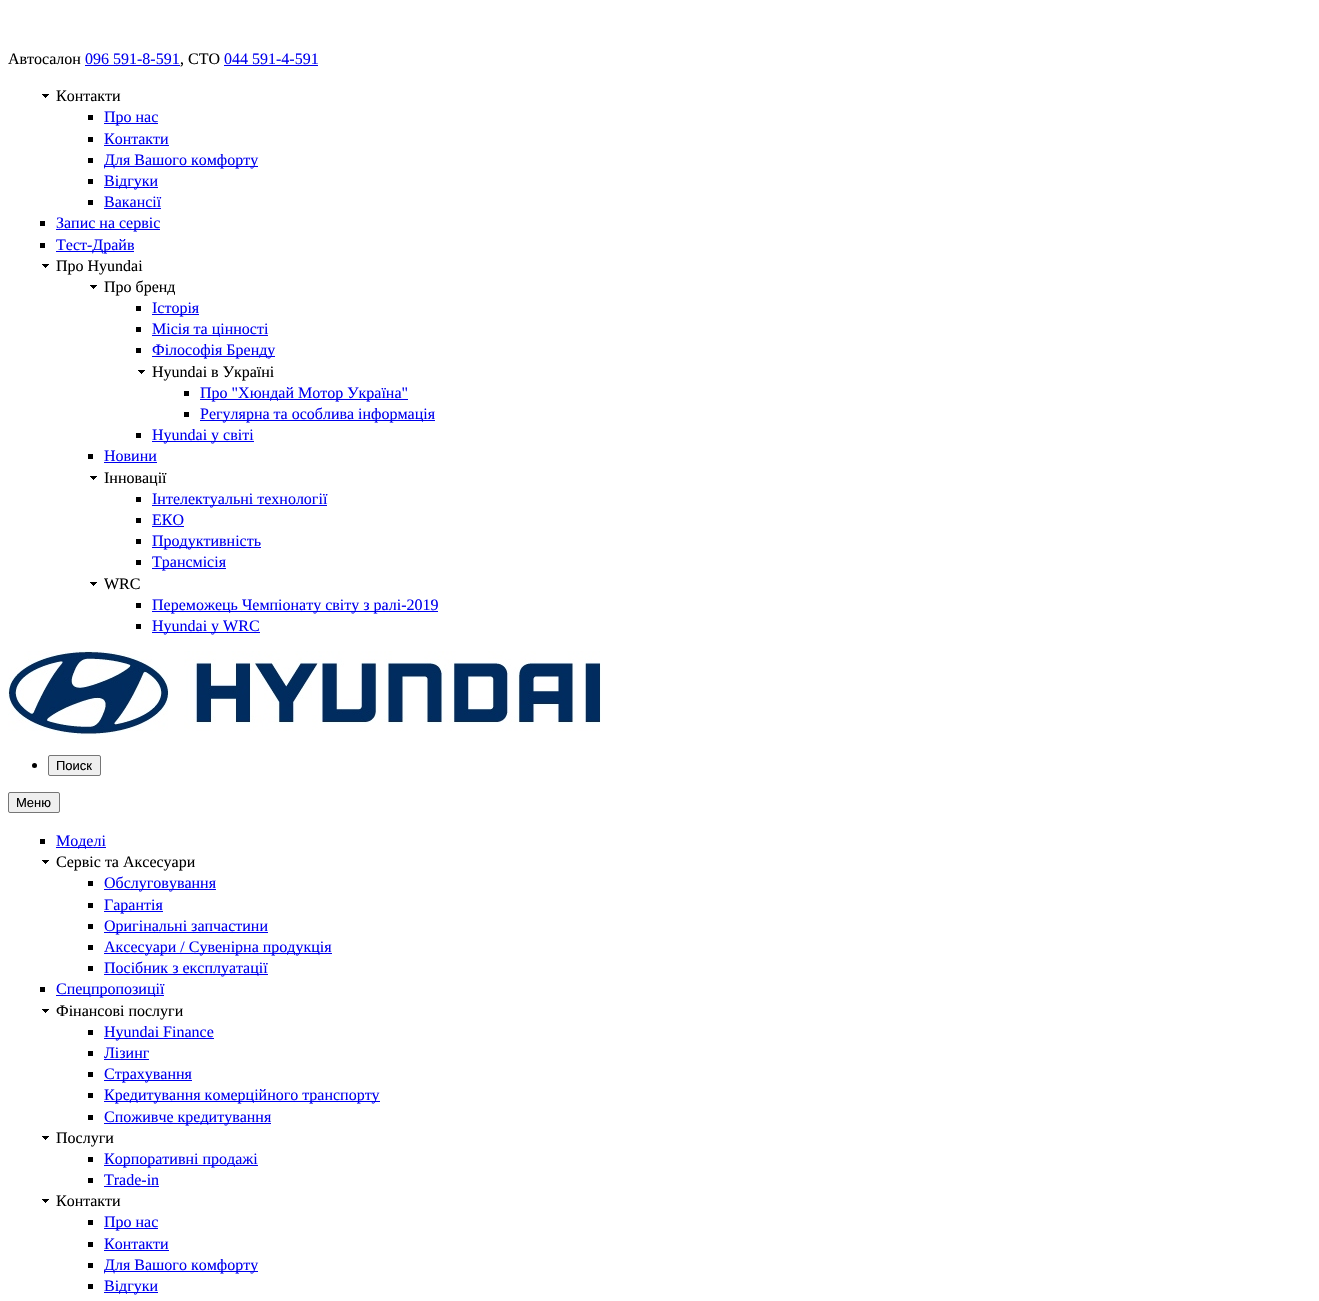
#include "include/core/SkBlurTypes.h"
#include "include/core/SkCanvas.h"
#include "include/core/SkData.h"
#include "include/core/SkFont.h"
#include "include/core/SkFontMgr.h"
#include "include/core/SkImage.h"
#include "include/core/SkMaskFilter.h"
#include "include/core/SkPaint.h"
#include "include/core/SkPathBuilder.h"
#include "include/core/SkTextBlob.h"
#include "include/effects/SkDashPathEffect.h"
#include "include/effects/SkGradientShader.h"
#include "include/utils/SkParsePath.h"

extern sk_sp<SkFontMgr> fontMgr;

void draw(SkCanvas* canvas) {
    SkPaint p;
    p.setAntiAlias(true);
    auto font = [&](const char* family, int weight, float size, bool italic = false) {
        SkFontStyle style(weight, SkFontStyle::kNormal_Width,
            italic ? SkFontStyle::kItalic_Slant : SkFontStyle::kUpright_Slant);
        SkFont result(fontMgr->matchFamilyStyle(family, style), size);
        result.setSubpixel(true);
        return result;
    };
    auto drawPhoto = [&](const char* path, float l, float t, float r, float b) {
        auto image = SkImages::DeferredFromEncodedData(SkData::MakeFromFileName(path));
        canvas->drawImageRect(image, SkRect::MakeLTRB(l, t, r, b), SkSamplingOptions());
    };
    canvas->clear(0xFFFFFFFF);
    auto font1 = font("Liberation Serif", 400, 16);
    p.setColor(0xFF000000);
    canvas->drawString("Автосалон", 8, 64, font1, p);
    p.setColor(0xFF0000EE);
    canvas->drawString("096 591-8-591", 85, 64, font1, p);
    p.setColor(0xFF000000);
    canvas->drawString(", СТО", 180, 64, font1, p);
    p.setColor(0xFF0000EE);
    canvas->drawRect(SkRect::MakeLTRB(85, 65, 180, 66), p);
    canvas->drawString("044 591-4-591", 224, 64, font1, p);
    canvas->drawRect(SkRect::MakeLTRB(224, 65, 318, 66), p);
    drawPhoto("media/1.png", 42, 94, 49, 98);
    p.setColor(0xFF000000);
    canvas->drawString("Контакти", 56, 101, font1, p);
    canvas->drawRect(SkRect::MakeLTRB(88, 115, 93, 120), p);
    p.setColor(0xFF0000EE);
    canvas->drawRect(SkRect::MakeLTRB(104, 123, 158, 124), p);
    canvas->drawString("Про нас", 104, 122, font1, p);
    p.setColor(0xFF000000);
    canvas->drawRect(SkRect::MakeLTRB(88, 137, 93, 142), p);
    p.setColor(0xFF0000EE);
    canvas->drawString("Контакти", 104, 144, font1, p);
    {
        const struct { float l, t, r, b; SkColor color; } items[] = {
            {104, 145, 169, 146, 0xFF0000EE},
            {88, 158, 93, 163, 0xFF000000},
            {104, 166, 258, 167, 0xFF0000EE},
        };
        for (auto [l, t, r, b, color] : items) {
            p.setColor(color);
            canvas->drawRect(SkRect::MakeLTRB(l, t, r, b), p);
        }
    }
    canvas->drawString("Для Вашого комфорту", 104, 165, font1, p);
    p.setColor(0xFF000000);
    canvas->drawRect(SkRect::MakeLTRB(88, 179, 93, 184), p);
    p.setColor(0xFF0000EE);
    canvas->drawRect(SkRect::MakeLTRB(104, 187, 158, 188), p);
    canvas->drawString("Відгуки", 104, 186, font1, p);
    p.setColor(0xFF000000);
    canvas->drawRect(SkRect::MakeLTRB(88, 200, 93, 205), p);
    p.setColor(0xFF0000EE);
    canvas->drawString("Вакансії", 104, 207, font1, p);
    {
        const struct { float l, t, r, b; SkColor color; } items[] = {
            {104, 208, 161, 209, 0xFF0000EE},
            {40, 221, 45, 226, 0xFF000000},
            {56, 229, 160, 230, 0xFF0000EE},
        };
        for (auto [l, t, r, b, color] : items) {
            p.setColor(color);
            canvas->drawRect(SkRect::MakeLTRB(l, t, r, b), p);
        }
    }
    canvas->drawString("Запис на сервіс", 56, 228, font1, p);
    p.setColor(0xFF000000);
    canvas->drawRect(SkRect::MakeLTRB(40, 243, 45, 248), p);
    p.setColor(0xFF0000EE);
    canvas->drawRect(SkRect::MakeLTRB(56, 251, 134, 252), p);
    canvas->drawString("Тест-Драйв", 56, 250, font1, p);
    drawPhoto("media/1.png", 42, 264, 49, 268);
    p.setColor(0xFF000000);
    canvas->drawString("Про Hyundai", 56, 271, font1, p);
    drawPhoto("media/1.png", 90, 285, 97, 289);
    canvas->drawString("Про бренд", 104, 292, font1, p);
    canvas->drawRect(SkRect::MakeLTRB(136, 306, 141, 311), p);
    p.setColor(0xFF0000EE);
    canvas->drawRect(SkRect::MakeLTRB(152, 314, 199, 315), p);
    canvas->drawString("Історія", 152, 313, font1, p);
    p.setColor(0xFF000000);
    canvas->drawRect(SkRect::MakeLTRB(136, 327, 141, 332), p);
    p.setColor(0xFF0000EE);
    canvas->drawRect(SkRect::MakeLTRB(152, 335, 268, 336), p);
    canvas->drawString("Місія та цінності", 152, 334, font1, p);
    p.setColor(0xFF000000);
    canvas->drawRect(SkRect::MakeLTRB(136, 348, 141, 353), p);
    p.setColor(0xFF0000EE);
    canvas->drawRect(SkRect::MakeLTRB(152, 356, 275, 357), p);
    canvas->drawString("Філософія Бренду", 152, 355, font1, p);
    drawPhoto("media/1.png", 138, 370, 145, 374);
    p.setColor(0xFF000000);
    canvas->drawString("Hyundai в Україні", 152, 377, font1, p);
    canvas->drawRect(SkRect::MakeLTRB(184, 391, 189, 396), p);
    p.setColor(0xFF0000EE);
    canvas->drawRect(SkRect::MakeLTRB(200, 399, 408, 400), p);
    canvas->drawString("Про \"Хюндай Мотор Україна\"", 200, 398, font1, p);
    p.setColor(0xFF000000);
    canvas->drawRect(SkRect::MakeLTRB(184, 412, 189, 417), p);
    p.setColor(0xFF0000EE);
    canvas->drawRect(SkRect::MakeLTRB(200, 420, 435, 421), p);
    canvas->drawString("Регулярна та особлива інформація", 200, 419, font1, p);
    p.setColor(0xFF000000);
    canvas->drawRect(SkRect::MakeLTRB(136, 433, 141, 438), p);
    p.setColor(0xFF0000EE);
    canvas->drawRect(SkRect::MakeLTRB(152, 441, 254, 442), p);
    canvas->drawString("Hyundai у світі", 152, 440, font1, p);
    p.setColor(0xFF000000);
    canvas->drawRect(SkRect::MakeLTRB(88, 454, 93, 459), p);
    p.setColor(0xFF0000EE);
    canvas->drawString("Новини", 104, 461, font1, p);
    canvas->drawRect(SkRect::MakeLTRB(104, 462, 157, 463), p);
    drawPhoto("media/1.png", 90, 476, 97, 480);
    p.setColor(0xFF000000);
    canvas->drawString("Інновації", 104, 483, font1, p);
    canvas->drawRect(SkRect::MakeLTRB(136, 497, 141, 502), p);
    p.setColor(0xFF0000EE);
    canvas->drawRect(SkRect::MakeLTRB(152, 505, 327, 506), p);
    canvas->drawString("Інтелектуальні технології", 152, 504, font1, p);
    p.setColor(0xFF000000);
    canvas->drawRect(SkRect::MakeLTRB(136, 518, 141, 523), p);
    p.setColor(0xFF0000EE);
    canvas->drawString("ЕКО", 152, 525, font1, p);
    {
        const struct { float l, t, r, b; SkColor color; } items[] = {
            {152, 526, 184, 527, 0xFF0000EE},
            {136, 539, 141, 544, 0xFF000000},
            {152, 547, 261, 548, 0xFF0000EE},
        };
        for (auto [l, t, r, b, color] : items) {
            p.setColor(color);
            canvas->drawRect(SkRect::MakeLTRB(l, t, r, b), p);
        }
    }
    canvas->drawString("Продуктивність", 152, 546, font1, p);
    p.setColor(0xFF000000);
    canvas->drawRect(SkRect::MakeLTRB(136, 560, 141, 565), p);
    p.setColor(0xFF0000EE);
    canvas->drawRect(SkRect::MakeLTRB(152, 568, 226, 569), p);
    canvas->drawString("Трансмісія", 152, 567, font1, p);
    drawPhoto("media/1.png", 90, 582, 97, 586);
    p.setColor(0xFF000000);
    canvas->drawString("WRC", 104, 589, font1, p);
    canvas->drawRect(SkRect::MakeLTRB(136, 603, 141, 608), p);
    p.setColor(0xFF0000EE);
    canvas->drawRect(SkRect::MakeLTRB(152, 611, 438, 612), p);
    canvas->drawString("Переможець Чемпіонату світу з ралі-2019", 152, 610, font1, p);
    p.setColor(0xFF000000);
    canvas->drawRect(SkRect::MakeLTRB(136, 624, 141, 629), p);
    p.setColor(0xFF0000EE);
    canvas->drawRect(SkRect::MakeLTRB(152, 632, 260, 633), p);
    canvas->drawString("Hyundai у WRC", 152, 631, font1, p);
    drawPhoto("media/2.png", 8, 651, 601, 735);
    p.setColor(0xFF000000);
    canvas->drawCircle(34.5f, 765.5f, 2.5f, p);
    p.setColor(0xFFEFEFEF);
    canvas->drawRoundRect(SkRect::MakeLTRB(48.5f, 755.5f, 100.5f, 775.5f), 1.5f, 1.5f, p);
    p.setStyle(SkPaint::kStroke_Style);
    p.setStrokeWidth(1);
    p.setColor(0xFF767676);
    canvas->drawRoundRect(SkRect::MakeLTRB(48.5f, 755.5f, 100.5f, 775.5f), 1.5f, 1.5f, p);
    auto font2 = font("Liberation Sans", 400, 13);
    p.setStyle(SkPaint::kFill_Style);
    p.setColor(0xFF000000);
    canvas->drawString("Поиск", 56, 770, font2, p);
    p.setColor(0xFFEFEFEF);
    canvas->drawRoundRect(SkRect::MakeLTRB(8.5f, 792.5f, 59.5f, 812.5f), 1.5f, 1.5f, p);
    p.setStyle(SkPaint::kStroke_Style);
    p.setColor(0xFF767676);
    canvas->drawRoundRect(SkRect::MakeLTRB(8.5f, 792.5f, 59.5f, 812.5f), 1.5f, 1.5f, p);
    p.setStyle(SkPaint::kFill_Style);
    p.setColor(0xFF000000);
    canvas->drawString("Меню", 16, 807, font2, p);
    canvas->drawRect(SkRect::MakeLTRB(40, 839, 45, 844), p);
    p.setColor(0xFF0000EE);
    canvas->drawRect(SkRect::MakeLTRB(56, 847, 106, 848), p);
    canvas->drawString("Моделі", 56, 846, font1, p);
    drawPhoto("media/1.png", 42, 860, 49, 864);
    p.setColor(0xFF000000);
    canvas->drawString("Сервіс та Аксесуари", 56, 867, font1, p);
    canvas->drawRect(SkRect::MakeLTRB(88, 881, 93, 886), p);
    p.setColor(0xFF0000EE);
    canvas->drawRect(SkRect::MakeLTRB(104, 889, 216, 890), p);
    canvas->drawString("Обслуговування", 104, 888, font1, p);
    p.setColor(0xFF000000);
    canvas->drawRect(SkRect::MakeLTRB(88, 903, 93, 908), p);
    p.setColor(0xFF0000EE);
    canvas->drawRect(SkRect::MakeLTRB(104, 911, 163, 912), p);
    canvas->drawString("Гарантія", 104, 910, font1, p);
    p.setColor(0xFF000000);
    canvas->drawRect(SkRect::MakeLTRB(88, 924, 93, 929), p);
    p.setColor(0xFF0000EE);
    canvas->drawRect(SkRect::MakeLTRB(104, 932, 268, 933), p);
    canvas->drawString("Оригінальні запчастини", 104, 931, font1, p);
    p.setColor(0xFF000000);
    canvas->drawRect(SkRect::MakeLTRB(88, 945, 93, 950), p);
    p.setColor(0xFF0000EE);
    canvas->drawRect(SkRect::MakeLTRB(104, 953, 332, 954), p);
    canvas->drawString("Аксесуари / Сувенірна продукція", 104, 952, font1, p);
    p.setColor(0xFF000000);
    canvas->drawRect(SkRect::MakeLTRB(88, 966, 93, 971), p);
    p.setColor(0xFF0000EE);
    canvas->drawRect(SkRect::MakeLTRB(104, 974, 268, 975), p);
    canvas->drawString("Посібник з експлуатації", 104, 973, font1, p);
    p.setColor(0xFF000000);
    canvas->drawRect(SkRect::MakeLTRB(40, 987, 45, 992), p);
    p.setColor(0xFF0000EE);
    canvas->drawRect(SkRect::MakeLTRB(56, 995, 164, 996), p);
    canvas->drawString("Спецпропозиції", 56, 994, font1, p);
    drawPhoto("media/1.png", 42, 1009, 49, 1013);
    p.setColor(0xFF000000);
    canvas->drawString("Фінансові послуги", 56, 1016, font1, p);
    canvas->drawRect(SkRect::MakeLTRB(88, 1030, 93, 1035), p);
    p.setColor(0xFF0000EE);
    canvas->drawRect(SkRect::MakeLTRB(104, 1038, 214, 1039), p);
    canvas->drawString("Hyundai Finance", 104, 1037, font1, p);
    p.setColor(0xFF000000);
    canvas->drawRect(SkRect::MakeLTRB(88, 1051, 93, 1056), p);
    p.setColor(0xFF0000EE);
    canvas->drawString("Лізинг", 104, 1058, font1, p);
    {
        const struct { float l, t, r, b; SkColor color; } items[] = {
            {104, 1059, 149, 1060, 0xFF0000EE},
            {88, 1072, 93, 1077, 0xFF000000},
            {104, 1080, 192, 1081, 0xFF0000EE},
        };
        for (auto [l, t, r, b, color] : items) {
            p.setColor(color);
            canvas->drawRect(SkRect::MakeLTRB(l, t, r, b), p);
        }
    }
    canvas->drawString("Страхування", 104, 1079, font1, p);
    p.setColor(0xFF000000);
    canvas->drawRect(SkRect::MakeLTRB(88, 1093, 93, 1098), p);
    p.setColor(0xFF0000EE);
    canvas->drawRect(SkRect::MakeLTRB(104, 1101, 380, 1102), p);
    canvas->drawString("Кредитування комерційного транспорту", 104, 1100, font1, p);
    p.setColor(0xFF000000);
    canvas->drawRect(SkRect::MakeLTRB(88, 1115, 93, 1120), p);
    p.setColor(0xFF0000EE);
    canvas->drawRect(SkRect::MakeLTRB(104, 1123, 271, 1124), p);
    canvas->drawString("Споживче кредитування", 104, 1122, font1, p);
    drawPhoto("media/1.png", 42, 1136, 49, 1140);
    p.setColor(0xFF000000);
    canvas->drawString("Послуги", 56, 1143, font1, p);
    canvas->drawRect(SkRect::MakeLTRB(88, 1157, 93, 1162), p);
    p.setColor(0xFF0000EE);
    canvas->drawRect(SkRect::MakeLTRB(104, 1165, 258, 1166), p);
    canvas->drawString("Корпоративні продажі", 104, 1164, font1, p);
    p.setColor(0xFF000000);
    canvas->drawRect(SkRect::MakeLTRB(88, 1178, 93, 1183), p);
    p.setColor(0xFF0000EE);
    canvas->drawString("Trade-in", 104, 1185, font1, p);
    canvas->drawRect(SkRect::MakeLTRB(104, 1186, 159, 1187), p);
    drawPhoto("media/1.png", 42, 1199, 49, 1203);
    p.setColor(0xFF000000);
    canvas->drawString("Контакти", 56, 1206, font1, p);
    canvas->drawRect(SkRect::MakeLTRB(88, 1220, 93, 1225), p);
    p.setColor(0xFF0000EE);
    canvas->drawRect(SkRect::MakeLTRB(104, 1228, 158, 1229), p);
    canvas->drawString("Про нас", 104, 1227, font1, p);
    p.setColor(0xFF000000);
    canvas->drawRect(SkRect::MakeLTRB(88, 1242, 93, 1247), p);
    p.setColor(0xFF0000EE);
    canvas->drawString("Контакти", 104, 1249, font1, p);
    {
        const struct { float l, t, r, b; SkColor color; } items[] = {
            {104, 1250, 169, 1251, 0xFF0000EE},
            {88, 1263, 93, 1268, 0xFF000000},
            {104, 1271, 258, 1272, 0xFF0000EE},
        };
        for (auto [l, t, r, b, color] : items) {
            p.setColor(color);
            canvas->drawRect(SkRect::MakeLTRB(l, t, r, b), p);
        }
    }
    canvas->drawString("Для Вашого комфорту", 104, 1270, font1, p);
    p.setColor(0xFF000000);
    canvas->drawRect(SkRect::MakeLTRB(88, 1284, 93, 1289), p);
    p.setColor(0xFF0000EE);
    canvas->drawRect(SkRect::MakeLTRB(104, 1292, 158, 1293), p);
    canvas->drawString("Відгуки", 104, 1291, font1, p);
}
